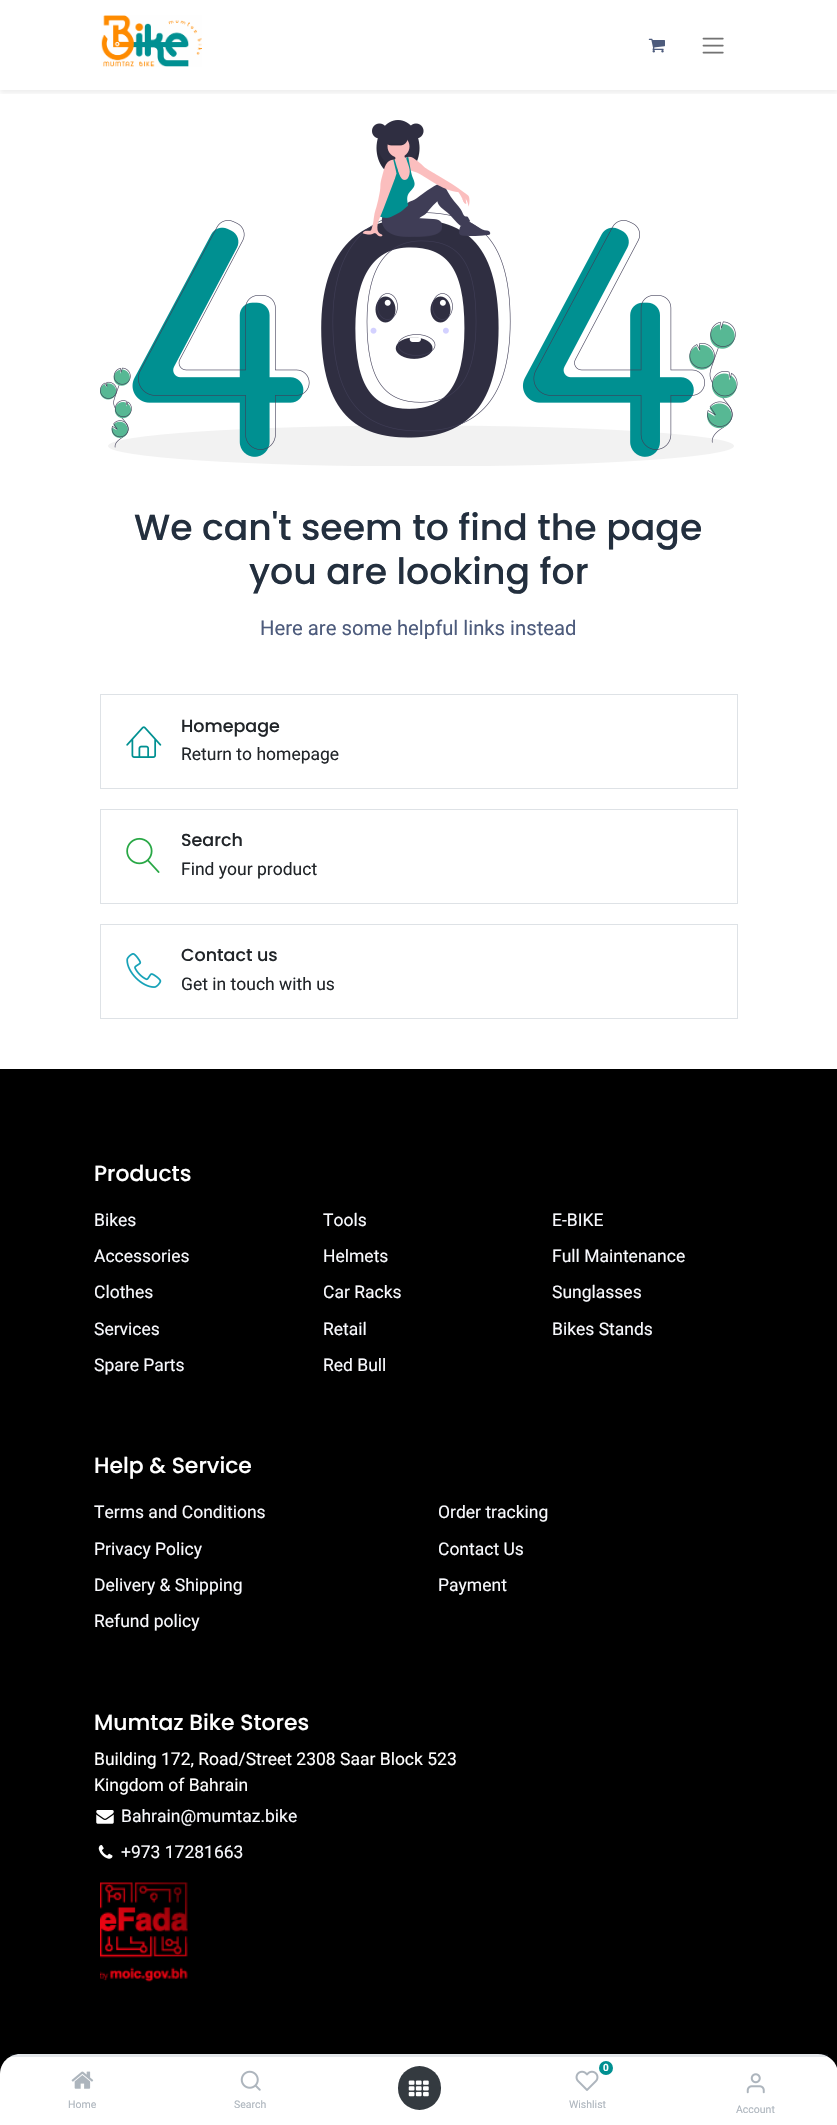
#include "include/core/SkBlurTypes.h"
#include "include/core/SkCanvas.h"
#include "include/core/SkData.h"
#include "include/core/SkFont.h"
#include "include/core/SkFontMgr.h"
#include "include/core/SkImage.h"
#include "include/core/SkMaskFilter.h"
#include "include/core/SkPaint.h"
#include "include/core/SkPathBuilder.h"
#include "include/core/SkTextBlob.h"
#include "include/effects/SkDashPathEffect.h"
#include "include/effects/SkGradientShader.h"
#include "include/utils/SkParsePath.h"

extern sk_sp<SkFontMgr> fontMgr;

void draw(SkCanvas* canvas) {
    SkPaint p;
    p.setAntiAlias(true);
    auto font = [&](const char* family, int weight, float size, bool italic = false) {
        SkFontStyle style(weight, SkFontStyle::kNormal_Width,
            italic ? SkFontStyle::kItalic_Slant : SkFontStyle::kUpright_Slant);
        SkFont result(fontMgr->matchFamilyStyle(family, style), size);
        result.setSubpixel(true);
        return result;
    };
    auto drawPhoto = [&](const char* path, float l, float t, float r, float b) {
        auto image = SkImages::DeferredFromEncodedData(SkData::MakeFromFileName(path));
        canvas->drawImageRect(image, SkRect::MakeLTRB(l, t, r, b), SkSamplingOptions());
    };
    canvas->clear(0xFFFFFFFF);
    canvas->save();
    canvas->clipRect(SkRect::MakeLTRB(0, 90, 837, 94));
    p.setColor(0x12000000);
    p.setMaskFilter(SkMaskFilter::MakeBlur(kNormal_SkBlurStyle, 2.5f));
    canvas->drawRect(SkRect::MakeLTRB(0, 3, 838, 93), p);
    p.setMaskFilter(nullptr);
    canvas->restore();
    drawPhoto("media/1.png", 101, 15, 202, 67);
    drawPhoto("media/2.png", 648, 38, 665, 53);
    drawPhoto("media/3.png", 702, 37, 724, 54);
    drawPhoto("media/4.png", 100, 120, 738, 466);
    auto font1 = font("Poppins", 500, 36.25f);
    p.setColor(0xFF232F3E);
    canvas->drawString("We can't seem to find the page", 134, 540, font1, p);
    canvas->drawString("you are looking for", 249, 584, font1, p);
    auto font2 = font("Roboto", 400, 20.25f);
    p.setColor(0xFF4D5B7C);
    canvas->drawString("Here are some helpful links instead", 260, 635, font2, p);
    p.setStyle(SkPaint::kStroke_Style);
    p.setStrokeWidth(1);
    p.setColor(0xFFDEE2E6);
    canvas->drawRect(SkRect::MakeLTRB(100.5f, 694.5f, 737.5f, 788.5f), p);
    drawPhoto("media/5.png", 126, 726, 162, 758);
    auto font3 = font("Poppins", 500, 17.5f);
    p.setStyle(SkPaint::kFill_Style);
    p.setColor(0xFF212529);
    canvas->drawString("Homepage", 181, 732, font3, p);
    auto font4 = font("Roboto", 400, 17.5f);
    canvas->drawString("Return to homepage", 181, 760, font4, p);
    p.setStyle(SkPaint::kStroke_Style);
    p.setColor(0xFFDEE2E6);
    canvas->drawRect(SkRect::MakeLTRB(100.5f, 809.5f, 737.5f, 903.5f), p);
    drawPhoto("media/6.png", 126, 837, 160, 873);
    p.setStyle(SkPaint::kFill_Style);
    p.setColor(0xFF212529);
    canvas->drawString("Search", 181, 846, font3, p);
    canvas->drawString("Find your product", 181, 875, font4, p);
    p.setStyle(SkPaint::kStroke_Style);
    p.setColor(0xFFDEE2E6);
    canvas->drawRect(SkRect::MakeLTRB(100.5f, 924.5f, 737.5f, 1018.5f), p);
    drawPhoto("media/7.png", 126, 953, 162, 988);
    p.setStyle(SkPaint::kFill_Style);
    p.setColor(0xFF212529);
    canvas->drawString("Contact us", 181, 961, font3, p);
    canvas->drawString("Get in touch with us", 181, 990, font4, p);
    p.setColor(0xFF000000);
    canvas->drawRect(SkRect::MakeLTRB(0, 1069, 837, 2074), p);
    auto font5 = font("Poppins", 500, 21.9f);
    p.setColor(0xFFFFFFFF);
    canvas->drawString("Products", 94, 1181, font5, p);
    p.setColor(0xFFF9FAFE);
    {
        const struct { const char* s; float x, y; } items[] = {
            {"Bikes", 94, 1226},
            {"Accessories", 94, 1262},
            {"Clothes", 94, 1298},
            {"Services", 94, 1335},
            {"Spare Parts", 94, 1371},
            {"Tools", 323, 1226},
            {"Helmets", 323, 1262},
            {"Car Racks", 323, 1298},
            {"Retail", 323, 1335},
            {"Red Bull", 323, 1371},
            {"E-BIKE", 552, 1226},
            {"Full Maintenance", 552, 1262},
            {"Sunglasses", 552, 1298},
            {"Bikes Stands", 552, 1335},
        };
        for (auto [s, x, y] : items) {
            canvas->drawString(s, x, y, font4, p);
        }
    }
    p.setColor(0xFFFFFFFF);
    canvas->drawString("Help & Service", 94, 1473, font5, p);
    p.setColor(0xFFF9FAFE);
    {
        const struct { const char* s; float x, y; } items[] = {
            {"Terms and Conditions", 94, 1518},
            {"Privacy Policy", 94, 1555},
            {"Delivery & Shipping", 94, 1591},
            {"Refund policy", 94, 1627},
            {"Order tracking", 438, 1518},
            {"Contact Us", 438, 1555},
            {"Payment", 438, 1591},
        };
        for (auto [s, x, y] : items) {
            canvas->drawString(s, x, y, font4, p);
        }
    }
    p.setColor(0xFFFFFFFF);
    canvas->drawString("Mumtaz Bike Stores", 94, 1730, font5, p);
    canvas->drawString("Building 172, Road/Street 2308 Saar Block 523", 94, 1765, font4, p);
    canvas->drawString("Kingdom of Bahrain", 94, 1791, font4, p);
    drawPhoto("media/8.png", 96, 1810, 114, 1824);
    p.setColor(0xFFF9FAFE);
    canvas->drawString("Bahrain@mumtaz.bike", 121, 1822, font4, p);
    drawPhoto("media/9.png", 98, 1845, 113, 1859);
    canvas->drawString("+973 17281663", 121, 1858, font4, p);
    drawPhoto("media/10.png", 100, 1882, 188, 1982);
    p.setColor(0xFFFFFFFF);
    canvas->drawPath(SkPathBuilder().moveTo(20, 2054).lineTo(818, 2054).cubicTo(829, 2054, 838, 2063, 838, 2074).lineTo(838, 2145).lineTo(0, 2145).lineTo(0, 2074).cubicTo(0, 2063, 9, 2054, 20, 2054).close().detach(), p);
    p.setColor(0x264D5B7C);
    canvas->drawRect(SkRect::MakeLTRB(10, 2054, 828, 2057), p);
    drawPhoto("media/11.png", 71, 2071, 94, 2089);
    auto font6 = font("Roboto", 400, 10.5f);
    p.setColor(0xFFADB5BD);
    canvas->drawString("Home", 68, 2108, font6, p);
    drawPhoto("media/12.png", 240, 2070, 261, 2091);
    canvas->drawString("Search", 234, 2108, font6, p);
    p.setColor(0xFF343A40);
    canvas->drawRoundRect(SkRect::MakeLTRB(398, 2066, 441, 2110), 21.5f, 21.5f, p);
    drawPhoto("media/13.png", 408, 2080, 429, 2097);
    p.setColor(0xFF009091);
    canvas->drawCircle(606, 2068, 7, p);
    auto font7 = font("Roboto", 700, 10);
    p.setColor(0xFFFFFFFF);
    canvas->drawString("0", 603, 2071, font7, p);
    drawPhoto("media/14.png", 575, 2070, 599, 2091);
    p.setColor(0xFFADB5BD);
    canvas->drawString("Wishlist", 569, 2108, font6, p);
    drawPhoto("media/15.png", 746, 2073, 765, 2094);
    canvas->drawString("Account", 736, 2113, font6, p);
}
